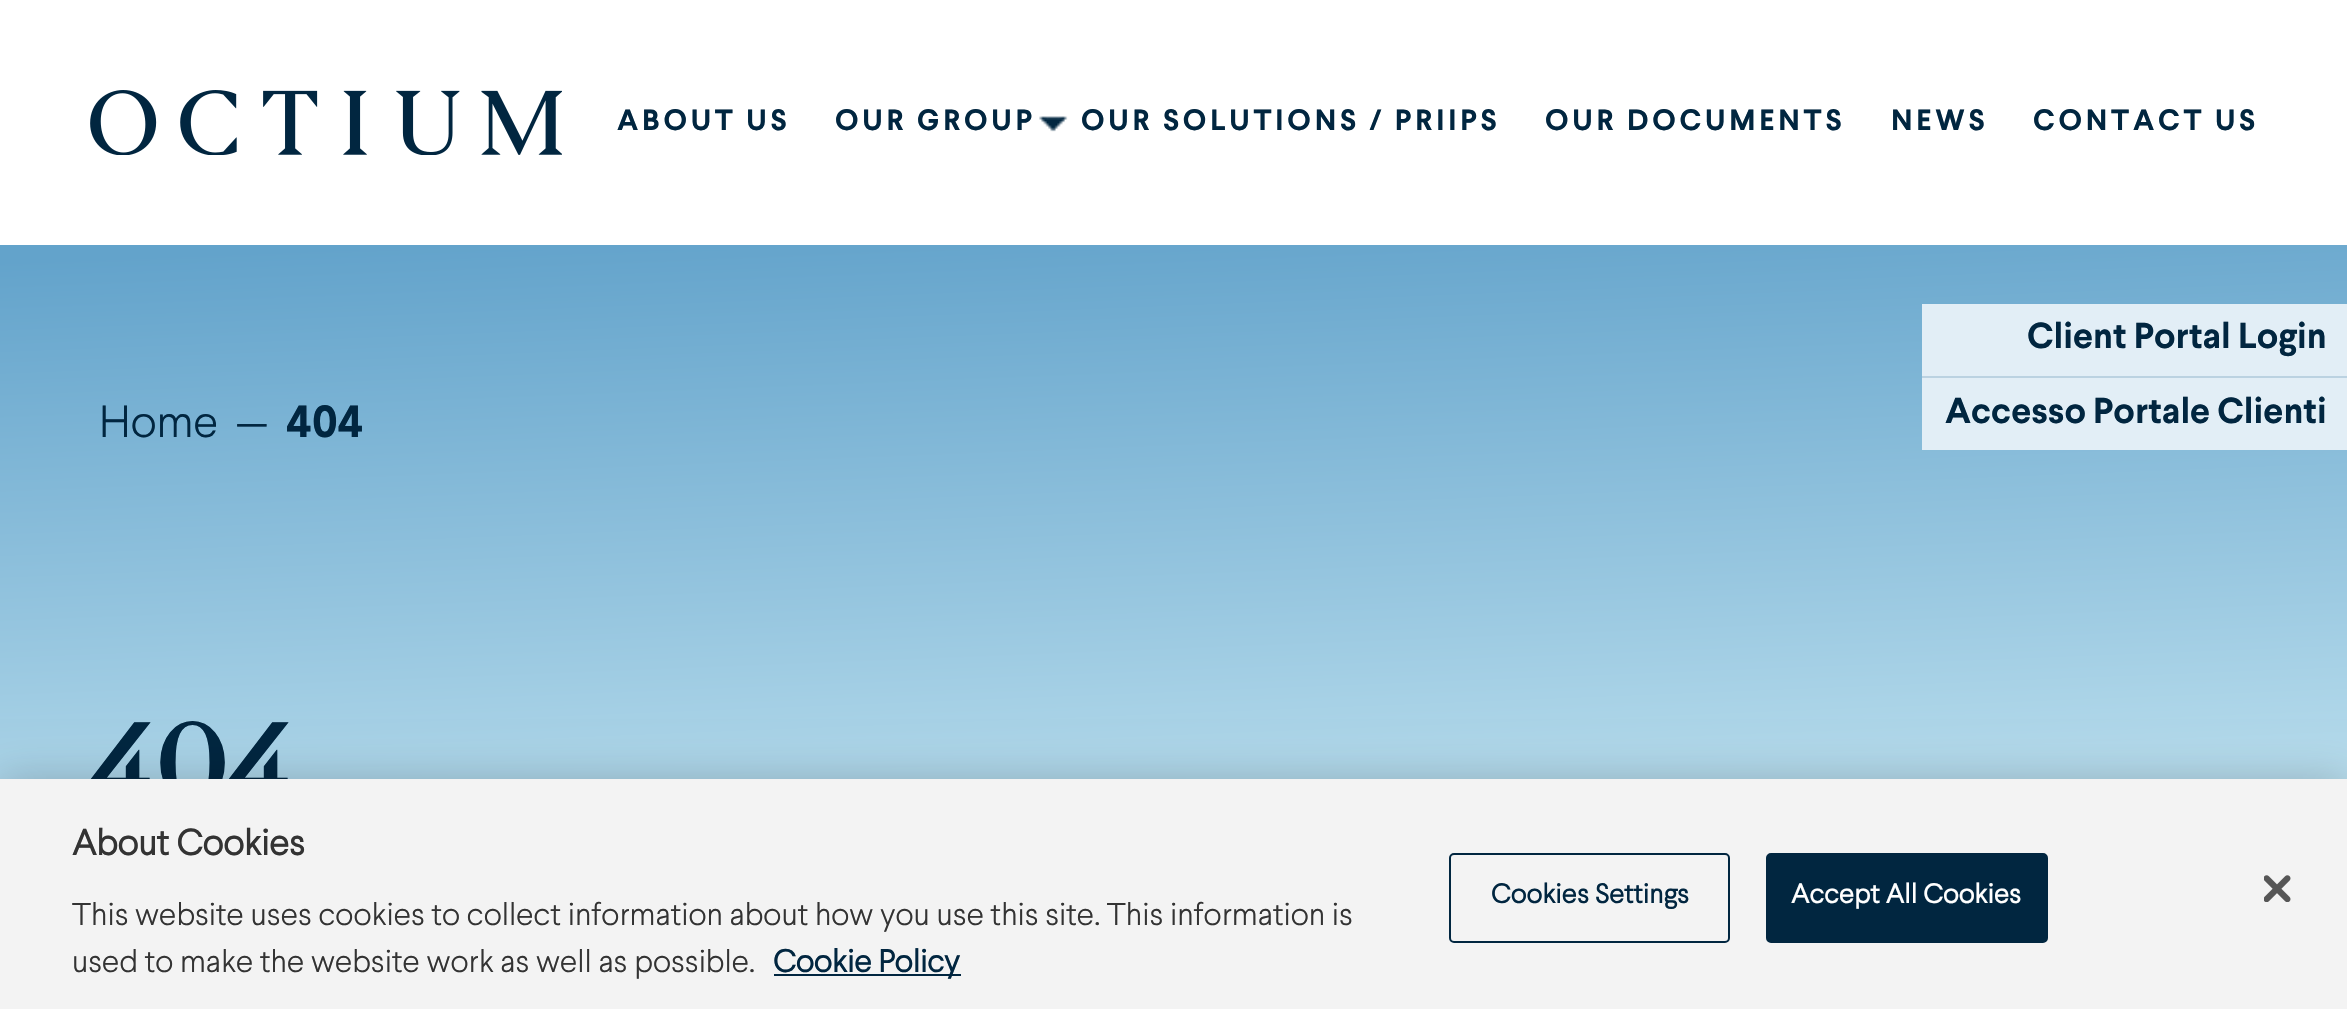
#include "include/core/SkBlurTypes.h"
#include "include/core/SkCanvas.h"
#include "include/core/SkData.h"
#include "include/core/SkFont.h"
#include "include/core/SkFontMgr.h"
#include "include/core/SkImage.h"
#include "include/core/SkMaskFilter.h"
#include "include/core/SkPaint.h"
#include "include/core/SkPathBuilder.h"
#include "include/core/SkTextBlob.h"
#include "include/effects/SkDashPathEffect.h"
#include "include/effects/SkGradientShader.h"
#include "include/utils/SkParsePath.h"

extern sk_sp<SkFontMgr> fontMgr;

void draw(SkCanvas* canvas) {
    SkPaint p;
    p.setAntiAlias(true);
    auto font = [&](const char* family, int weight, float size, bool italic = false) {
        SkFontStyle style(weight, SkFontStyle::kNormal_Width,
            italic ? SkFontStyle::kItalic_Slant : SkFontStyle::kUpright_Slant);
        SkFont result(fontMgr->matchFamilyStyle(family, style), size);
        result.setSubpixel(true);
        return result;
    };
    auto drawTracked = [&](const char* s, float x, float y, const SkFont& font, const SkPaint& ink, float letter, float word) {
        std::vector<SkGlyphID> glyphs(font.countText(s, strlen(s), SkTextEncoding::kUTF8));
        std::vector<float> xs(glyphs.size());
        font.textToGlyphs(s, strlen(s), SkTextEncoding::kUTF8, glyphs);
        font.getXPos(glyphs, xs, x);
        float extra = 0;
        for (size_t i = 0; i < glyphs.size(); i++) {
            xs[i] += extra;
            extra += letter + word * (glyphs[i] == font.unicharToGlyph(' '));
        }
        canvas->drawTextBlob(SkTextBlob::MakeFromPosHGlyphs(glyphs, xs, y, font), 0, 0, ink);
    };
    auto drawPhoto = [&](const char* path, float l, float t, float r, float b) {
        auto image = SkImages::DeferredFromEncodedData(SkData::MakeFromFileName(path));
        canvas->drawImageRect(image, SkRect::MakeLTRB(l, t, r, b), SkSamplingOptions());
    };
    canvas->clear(0xFFFFFFFF);
    drawPhoto("media/1.png", 90, 90, 562, 155);
    auto font1 = font("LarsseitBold", 400, 29.4f);
    p.setColor(0xFF012640);
    drawTracked("ABOUT US", 617, 130, font1, p, 3.8f, 0);
    drawTracked("OUR GROUP", 835, 130, font1, p, 3.8f, 0);
    drawPhoto("media/2.png", 1039, 116, 1068, 132);
    {
        const struct { const char* s; float x, y; } items[] = {
            {"OUR SOLUTIONS / PRIIPS", 1081, 130},
            {"OUR DOCUMENTS", 1545, 130},
            {"NEWS", 1891, 130},
            {"CONTACT US", 2033, 130},
        };
        for (auto [s, x, y] : items) {
            drawTracked(s, x, y, font1, p, 3.8f, 0);
        }
    }
    {
        const SkColor colors[] = {0xFF63A3CB, 0xFFD0EDF6};
        const float stops[] = {0.02f, 1};
        const SkPoint ends[] = {{1159, 199}, {1191, 1008}};
        p.setShader(SkGradientShader::MakeLinear(ends, colors, stops, 2, SkTileMode::kClamp));
        p.setAlpha(255);
    }
    canvas->drawRect(SkRect::MakeLTRB(0, 245, 2347, 779), p);
    p.setShader(nullptr);
    p.setColor(0xFFE2EEF6);
    canvas->drawRect(SkRect::MakeLTRB(1922, 304, 2347, 376), p);
    p.setColor(0xFFBBD2E1);
    canvas->drawRect(SkRect::MakeLTRB(1922, 376, 2347, 378), p);
    auto font2 = font("LarsseitBold", 400, 36);
    p.setColor(0xFF012640);
    canvas->drawString("Client Portal Login", 2027, 348, font2, p);
    p.setColor(0xFFE2EEF6);
    canvas->drawRect(SkRect::MakeLTRB(1922, 378, 2347, 450), p);
    p.setColor(0xFF012640);
    canvas->drawString("Accesso Portale Clienti", 1945, 423, font2, p);
    auto font3 = font("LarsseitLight", 400, 45);
    canvas->drawString("Home", 99, 437, font3, p);
    canvas->drawString("—", 236, 437, font3, p);
    auto font4 = font("LarsseitBold", 400, 45);
    canvas->drawString("404", 286, 437, font4, p);
    auto font5 = font("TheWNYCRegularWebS", 400, 112);
    drawTracked("404", 90, 803, font5, p, -2, 0);
    p.setColor(0x33000000);
    p.setMaskFilter(SkMaskFilter::MakeBlur(kNormal_SkBlurStyle, 20));
    canvas->drawRect(SkRect::MakeLTRB(0, 779, 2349, 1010), p);
    p.setMaskFilter(nullptr);
    p.setColor(0xFFF3F3F3);
    canvas->drawRect(SkRect::MakeLTRB(0, 779, 2347, 1009), p);
    auto font6 = font("LarsseitLight", 700, 36);
    p.setColor(0xFF333333);
    canvas->drawString("About Cookies", 72, 855, font6, p);
    auto font7 = font("LarsseitLight", 400, 31.5f);
    canvas->drawString("This website uses cookies to collect information about how you use this site. This information is", 72, 925, font7, p);
    canvas->drawString("used to make the website work as well as possible.", 72, 972, font7, p);
    p.setColor(0xFF012640);
    canvas->drawRect(SkRect::MakeLTRB(774, 974, 961, 976), p);
    auto font8 = font("LarsseitLight", 700, 31.5f);
    canvas->drawString("Cookie Policy", 773, 972, font8, p);
    p.setStyle(SkPaint::kStroke_Style);
    p.setStrokeWidth(2);
    canvas->drawRoundRect(SkRect::MakeLTRB(1450, 854, 1729, 942), 4, 4, p);
    auto font9 = font("LarsseitLight", 700, 27);
    p.setStyle(SkPaint::kFill_Style);
    drawTracked("Cookies Settings", 1491, 903, font9, p, 0.25f, 0);
    canvas->drawRoundRect(SkRect::MakeLTRB(1767, 854, 2047, 942), 4, 4, p);
    p.setStyle(SkPaint::kStroke_Style);
    canvas->drawRoundRect(SkRect::MakeLTRB(1767, 854, 2047, 942), 4, 4, p);
    p.setStyle(SkPaint::kFill_Style);
    p.setColor(0xFFFFFFFF);
    drawTracked("Accept All Cookies", 1791, 903, font9, p, 0.25f, 0);
    drawPhoto("media/3.png", 2264, 875, 2291, 902);
}
